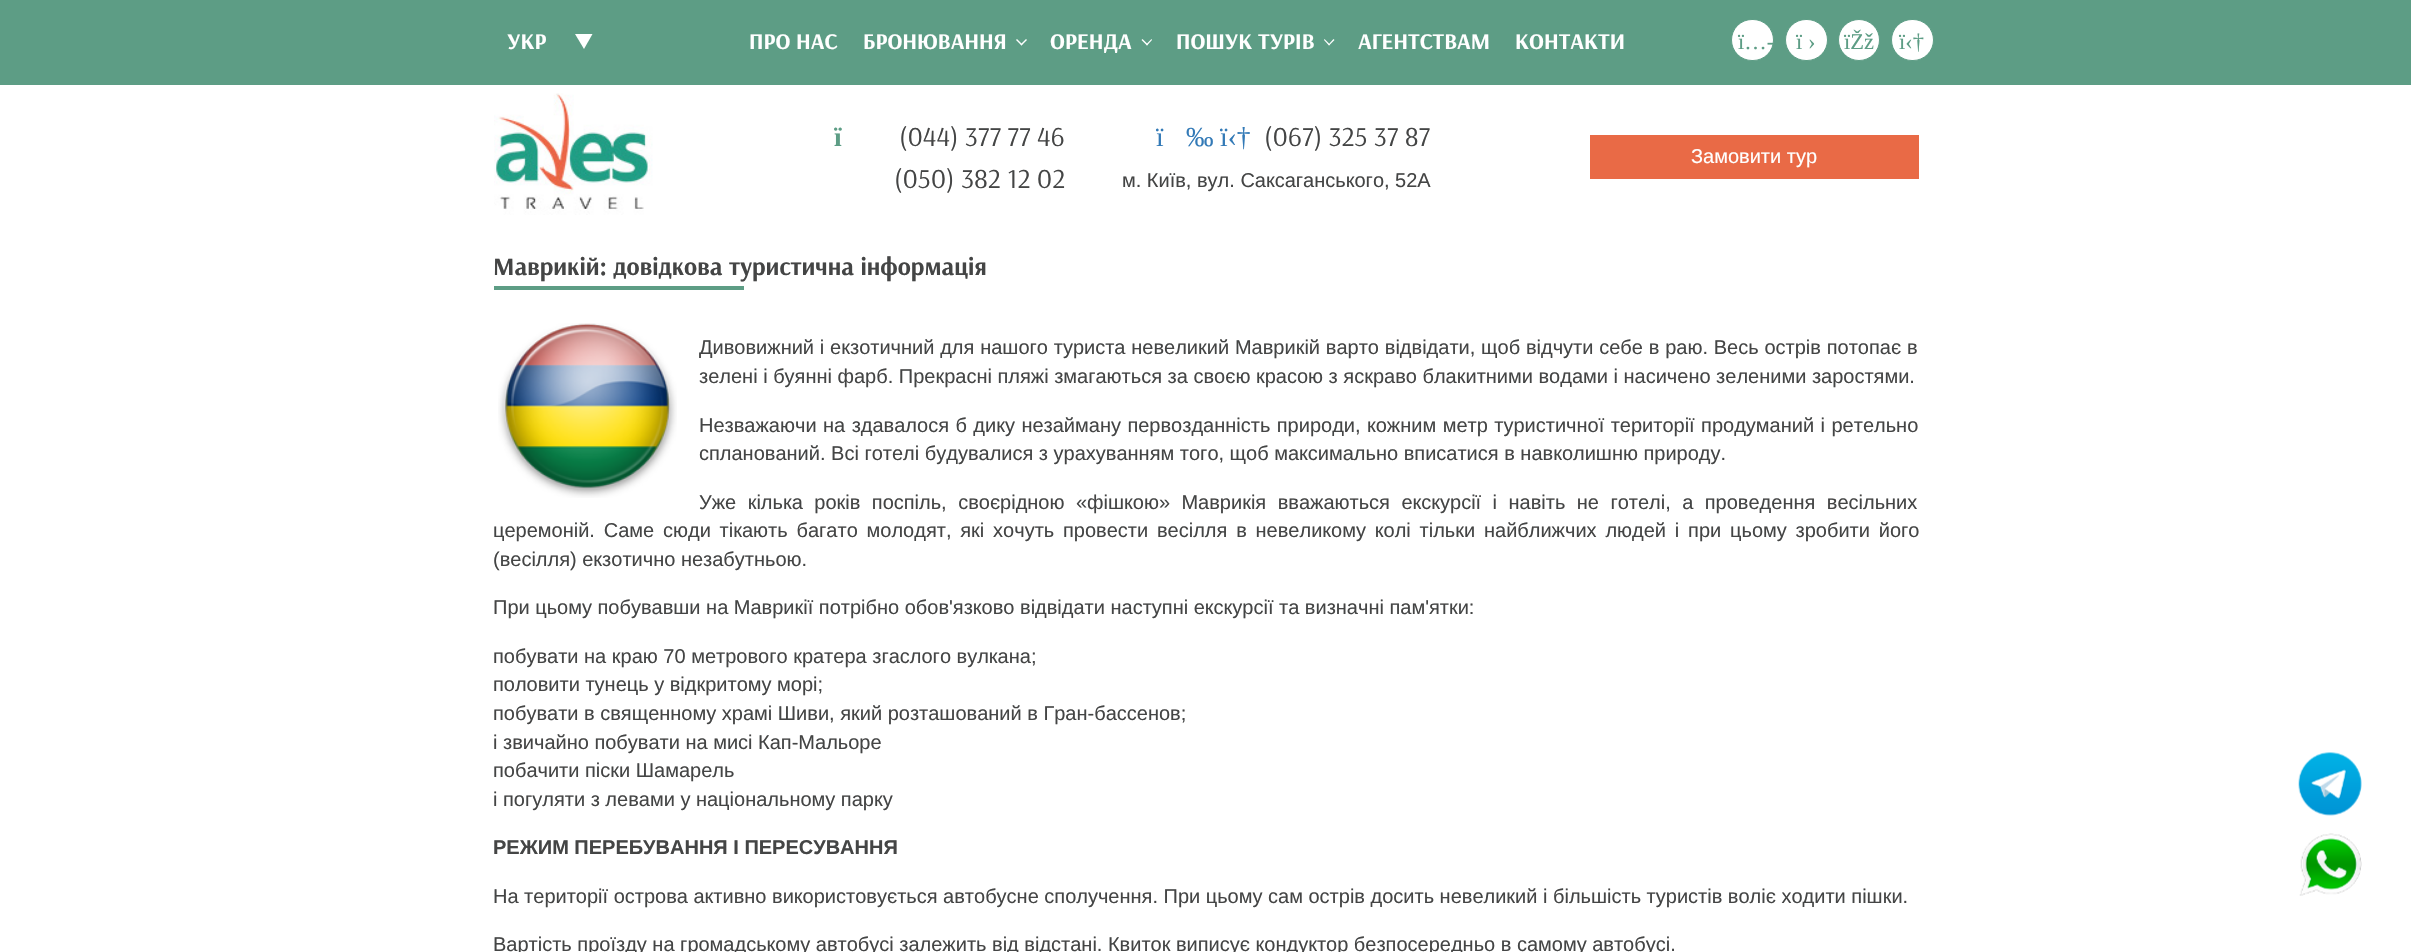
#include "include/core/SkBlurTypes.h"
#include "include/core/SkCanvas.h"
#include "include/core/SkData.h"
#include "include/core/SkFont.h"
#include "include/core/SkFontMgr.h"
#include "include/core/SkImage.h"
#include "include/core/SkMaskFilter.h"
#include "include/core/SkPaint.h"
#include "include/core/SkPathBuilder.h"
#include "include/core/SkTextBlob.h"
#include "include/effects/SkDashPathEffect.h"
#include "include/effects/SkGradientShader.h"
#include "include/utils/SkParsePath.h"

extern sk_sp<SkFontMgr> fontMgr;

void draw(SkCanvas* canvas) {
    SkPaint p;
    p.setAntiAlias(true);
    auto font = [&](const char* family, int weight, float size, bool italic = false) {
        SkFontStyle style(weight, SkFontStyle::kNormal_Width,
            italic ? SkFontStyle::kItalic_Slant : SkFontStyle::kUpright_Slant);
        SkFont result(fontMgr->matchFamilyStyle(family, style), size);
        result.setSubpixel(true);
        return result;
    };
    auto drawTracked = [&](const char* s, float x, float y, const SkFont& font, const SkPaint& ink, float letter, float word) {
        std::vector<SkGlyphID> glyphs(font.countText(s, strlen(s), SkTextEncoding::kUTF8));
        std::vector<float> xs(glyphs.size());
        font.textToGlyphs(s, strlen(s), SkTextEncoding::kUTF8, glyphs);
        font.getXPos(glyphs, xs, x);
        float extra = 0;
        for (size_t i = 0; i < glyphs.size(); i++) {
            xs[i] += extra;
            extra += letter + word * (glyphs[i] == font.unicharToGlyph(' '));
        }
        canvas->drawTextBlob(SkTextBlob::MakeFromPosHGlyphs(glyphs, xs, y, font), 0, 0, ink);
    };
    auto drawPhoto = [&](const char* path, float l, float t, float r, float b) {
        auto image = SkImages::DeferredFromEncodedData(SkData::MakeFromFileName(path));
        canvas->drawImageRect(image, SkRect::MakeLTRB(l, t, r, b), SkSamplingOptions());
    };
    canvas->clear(0xFFFFFFFF);
    p.setColor(0xFF5D9D85);
    canvas->drawRect(SkRect::MakeLTRB(0, 0, 2411, 85), p);
    auto font1 = font("Arsenal", 700, 22.5f);
    p.setColor(0xFFFFFFFF);
    canvas->drawString("УКР", 507, 49, font1, p);
    canvas->drawPath(SkPathBuilder().moveTo(575, 34).lineTo(592.5f, 34).lineTo(584, 49).close().detach(), p);
    canvas->drawString("ПРО НАС", 749, 49, font1, p);
    canvas->drawString("БРОНЮВАННЯ", 863, 49, font1, p);
    canvas->drawPath(SkPathBuilder().moveTo(1026, 39).lineTo(1027, 40).lineTo(1021.5f, 45.5f).lineTo(1020.5f, 44.5f).close().detach(), p);
    canvas->drawPath(SkPathBuilder().moveTo(1017, 39).lineTo(1022.5f, 44.5f).lineTo(1021.5f, 45.5f).lineTo(1016, 40).close().detach(), p);
    canvas->drawString("ОРЕНДА", 1050, 49, font1, p);
    canvas->drawPath(SkPathBuilder().moveTo(1151.5f, 39).lineTo(1152, 40).lineTo(1147, 45.5f).lineTo(1146, 44.5f).close().detach(), p);
    canvas->drawPath(SkPathBuilder().moveTo(1142.5f, 39).lineTo(1148, 44.5f).lineTo(1147, 45.5f).lineTo(1141.5f, 40).close().detach(), p);
    canvas->drawString("ПОШУК ТУРІВ", 1176, 49, font1, p);
    canvas->drawPath(SkPathBuilder().moveTo(1333.5f, 39).lineTo(1334.5f, 40).lineTo(1329, 45.5f).lineTo(1328.5f, 44.5f).close().detach(), p);
    canvas->drawPath(SkPathBuilder().moveTo(1324.5f, 39).lineTo(1330, 44.5f).lineTo(1329, 45.5f).lineTo(1324, 40).close().detach(), p);
    canvas->drawString("АГЕНТСТВАМ", 1358, 49, font1, p);
    canvas->drawString("КОНТАКТИ", 1515, 49, font1, p);
    canvas->drawRoundRect(SkRect::MakeLTRB(1731.5f, 19.5f, 1773.5f, 60.5f), 20.5f, 20.5f, p);
    p.setStyle(SkPaint::kStroke_Style);
    p.setStrokeWidth(1);
    p.setColor(0xFF5D9D85);
    canvas->drawRoundRect(SkRect::MakeLTRB(1731.5f, 19.5f, 1773.5f, 60.5f), 20.5f, 20.5f, p);
    auto font2 = font("Liberation Serif", 400, 22.5f);
    p.setStyle(SkPaint::kFill_Style);
    canvas->drawString("ï…-", 1738, 49, font2, p);
    p.setColor(0xFFFFFFFF);
    canvas->drawRoundRect(SkRect::MakeLTRB(1785.5f, 19.5f, 1827.5f, 60.5f), 20.5f, 20.5f, p);
    p.setStyle(SkPaint::kStroke_Style);
    p.setColor(0xFF5D9D85);
    canvas->drawRoundRect(SkRect::MakeLTRB(1785.5f, 19.5f, 1827.5f, 60.5f), 20.5f, 20.5f, p);
    p.setStyle(SkPaint::kFill_Style);
    canvas->drawString("ï ›", 1796, 49, font2, p);
    p.setColor(0xFFFFFFFF);
    canvas->drawCircle(1859, 40, 20.5f, p);
    p.setStyle(SkPaint::kStroke_Style);
    p.setColor(0xFF5D9D85);
    canvas->drawCircle(1859, 40, 20.5f, p);
    p.setStyle(SkPaint::kFill_Style);
    canvas->drawString("ïŽž", 1844, 49, font2, p);
    p.setColor(0xFFFFFFFF);
    canvas->drawRoundRect(SkRect::MakeLTRB(1891.5f, 19.5f, 1933.5f, 60.5f), 20.5f, 20.5f, p);
    p.setStyle(SkPaint::kStroke_Style);
    p.setColor(0xFF5D9D85);
    canvas->drawRoundRect(SkRect::MakeLTRB(1891.5f, 19.5f, 1933.5f, 60.5f), 20.5f, 20.5f, p);
    p.setStyle(SkPaint::kFill_Style);
    canvas->drawString("ï‹†", 1899, 49, font2, p);
    drawPhoto("media/1.png", 494, 93, 653, 215);
    auto font3 = font("Liberation Serif", 700, 27.5f);
    canvas->drawString("ï", 834, 146, font3, p);
    auto font4 = font("Arsenal", 400, 27.5f);
    p.setColor(0xFF444545);
    canvas->drawString("(044) 377 77 46", 899, 146, font4, p);
    canvas->drawString("(050) 382 12 02", 894, 188, font4, p);
    auto font5 = font("Liberation Serif", 400, 27.5f);
    p.setColor(0xFF337AB7);
    {
        const struct { const char* s; float x, y; } items[] = {
            {"ï", 1156, 146},
            {"‰", 1186, 146},
            {"ï‹†", 1220, 146},
        };
        for (auto [s, x, y] : items) {
            canvas->drawString(s, x, y, font5, p);
        }
    }
    p.setColor(0xFF444545);
    canvas->drawString("(067) 325 37 87", 1264, 146, font4, p);
    auto font6 = font("Liberation Sans", 400, 20);
    canvas->drawString("м. Київ, вул. Саксаганського, 52А", 1122, 187, font6, p);
    p.setColor(0xFFE96A46);
    canvas->drawRect(SkRect::MakeLTRB(1590, 135, 1919, 179), p);
    p.setColor(0xFFFFFFFF);
    canvas->drawString("Замовити тур", 1691, 163, font6, p);
    auto font7 = font("Arsenal", 700, 25);
    p.setColor(0xFF444545);
    canvas->drawString("Маврикій: довідкова туристична інформація", 493, 275, font7, p);
    p.setColor(0xFF5D9D85);
    canvas->drawRect(SkRect::MakeLTRB(494, 286, 744, 290), p);
    drawPhoto("media/2.png", 498, 323, 677, 498);
    p.setColor(0xFF444545);
    drawTracked("Дивовижний і екзотичний для нашого туриста невеликий Маврикій варто відвідати, щоб відчути себе в раю. Весь острів потопає в", 699, 354, font6, p, 0, 0.25f);
    canvas->drawString("зелені і буянні фарб. Прекрасні пляжі змагаються за своєю красою з яскраво блакитними водами і насичено зеленими заростями.", 699, 383, font6, p);
    drawTracked("Незважаючи на здавалося б дику незайману первозданність природи, кожним метр туристичної території продуманий і ретельно", 699, 432, font6, p, 0, 0.9f);
    canvas->drawString("спланований. Всі готелі будувалися з урахуванням того, щоб максимально вписатися в навколишню природу.", 699, 460, font6, p);
    drawTracked("Уже кілька років поспіль, своєрідною «фішкою» Маврикія вважаються екскурсії і навіть не готелі, а проведення весільних", 699, 509, font6, p, 0, 5.9f);
    drawTracked("церемоній. Саме сюди тікають багато молодят, які хочуть провести весілля в невеликому колі тільки найближчих людей і при цьому зробити його", 493, 537, font6, p, 0, 3.25f);
    {
        const struct { const char* s; float x, y; } items[] = {
            {"(весілля) екзотично незабутньою.", 493, 566},
            {"При цьому побувавши на Маврикії потрібно обов'язково відвідати наступні екскурсії та визначні пам'ятки:", 493, 614},
            {"побувати на краю 70 метрового кратера згаслого вулкана;", 493, 663},
            {"половити тунець у відкритому морі;", 493, 691},
            {"побувати в священному храмі Шиви, який розташований в Гран-бассенов;", 493, 720},
            {"і звичайно побувати на мисі Кап-Мальоре", 493, 749},
            {"побачити піски Шамарель", 493, 777},
            {"і погуляти з левами у національному парку", 493, 806},
        };
        for (auto [s, x, y] : items) {
            canvas->drawString(s, x, y, font6, p);
        }
    }
    auto font8 = font("Liberation Sans", 700, 20);
    canvas->drawString("РЕЖИМ ПЕРЕБУВАННЯ І ПЕРЕСУВАННЯ", 493, 854, font8, p);
    canvas->drawString("На території острова активно використовується автобусне сполучення. При цьому сам острів досить невеликий і більшість туристів воліє ходити пішки.", 493, 903, font6, p);
    canvas->drawString("Вартість проїзду на громадському автобусі залежить від відстані. Квиток виписує кондуктор безпосередньо в самому автобусі.", 493, 951, font6, p);
    drawPhoto("media/3.png", 2298, 752, 2362, 816);
    drawPhoto("media/4.png", 2299, 833, 2362, 896);
}
